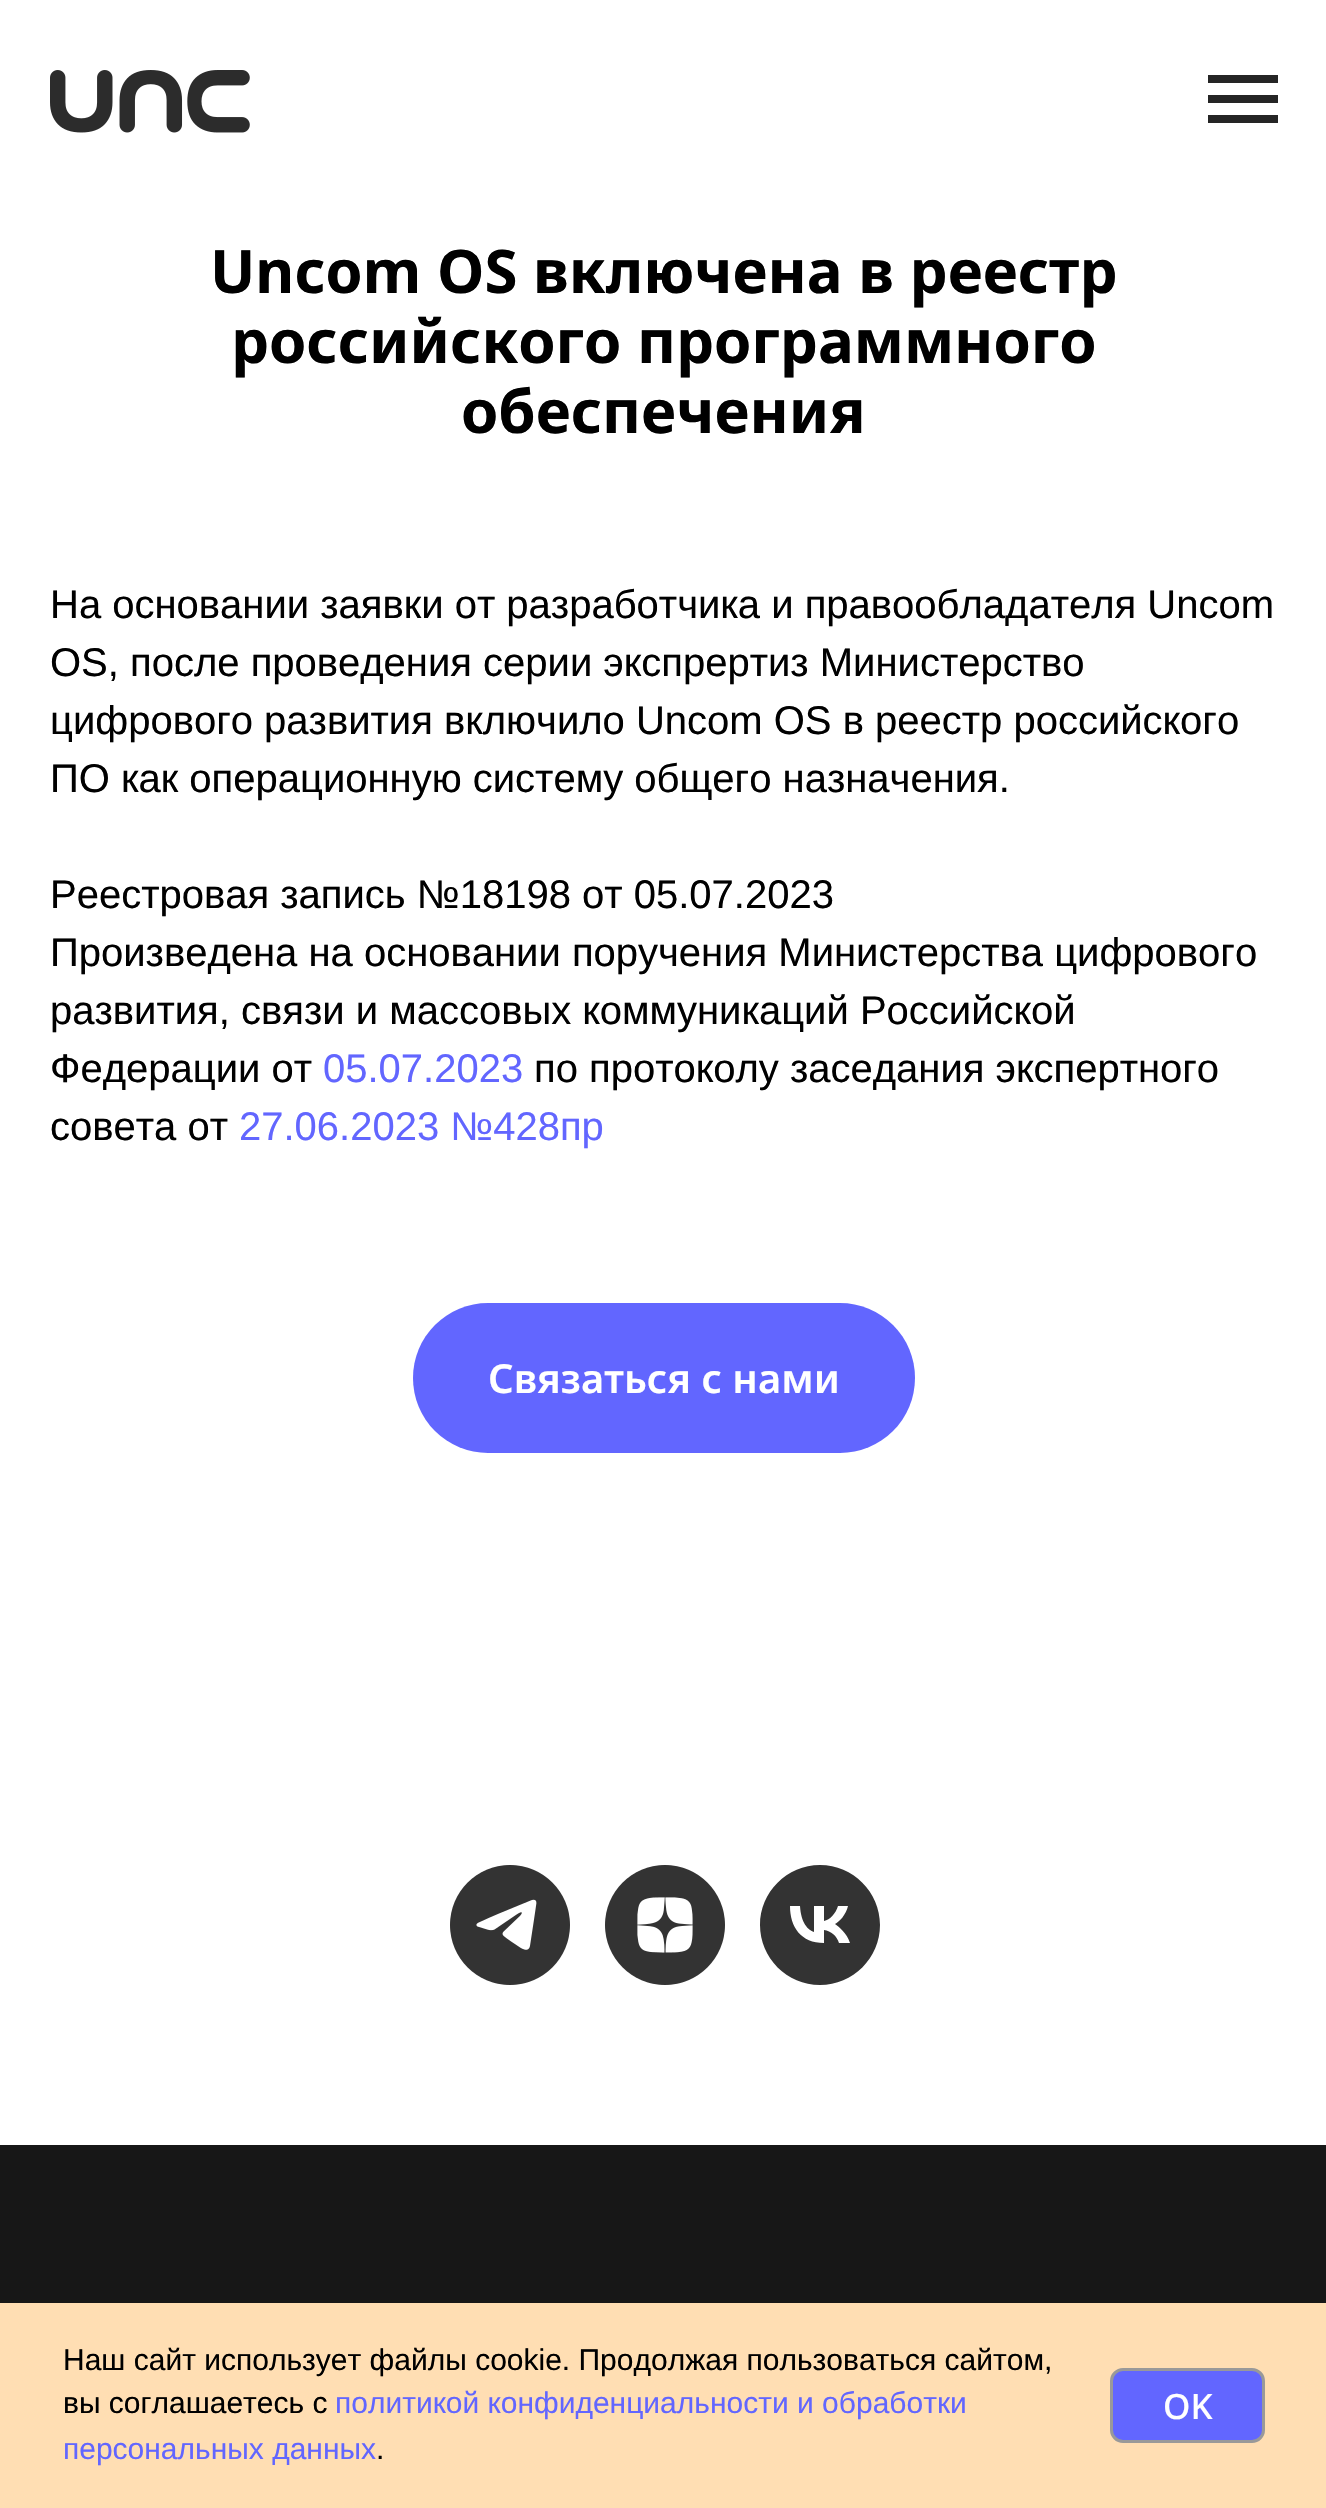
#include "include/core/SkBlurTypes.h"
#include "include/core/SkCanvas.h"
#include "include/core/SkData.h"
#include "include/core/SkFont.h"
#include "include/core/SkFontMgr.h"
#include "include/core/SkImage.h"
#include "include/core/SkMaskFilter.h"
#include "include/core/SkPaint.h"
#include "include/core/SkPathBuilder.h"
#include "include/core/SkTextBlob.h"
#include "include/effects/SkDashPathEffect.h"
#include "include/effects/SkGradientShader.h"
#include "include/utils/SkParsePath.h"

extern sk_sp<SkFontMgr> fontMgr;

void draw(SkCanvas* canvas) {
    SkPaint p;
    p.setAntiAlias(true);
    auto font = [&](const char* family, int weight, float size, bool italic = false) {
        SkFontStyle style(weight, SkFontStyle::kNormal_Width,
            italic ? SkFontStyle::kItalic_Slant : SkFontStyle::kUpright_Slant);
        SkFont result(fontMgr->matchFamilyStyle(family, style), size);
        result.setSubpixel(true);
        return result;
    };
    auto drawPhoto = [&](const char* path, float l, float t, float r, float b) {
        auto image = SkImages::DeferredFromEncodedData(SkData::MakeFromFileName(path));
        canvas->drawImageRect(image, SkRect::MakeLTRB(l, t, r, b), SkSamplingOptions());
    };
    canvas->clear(0xFFFFFFFF);
    drawPhoto("media/1.png", 50, 70, 250, 133);
    {
        const struct { float l, t, r, b; SkColor color; } items[] = {
            {1208, 75, 1278, 83, 0xFF252525},
            {1208, 95, 1278, 103, 0xFF252525},
            {1208, 115, 1278, 123, 0xFF252525},
        };
        for (auto [l, t, r, b, color] : items) {
            p.setColor(color);
            canvas->drawRect(SkRect::MakeLTRB(l, t, r, b), p);
        }
    }
    auto font1 = font("Noto Sans", 700, 60);
    p.setColor(0xFF000000);
    {
        const struct { const char* s; float x, y; } items[] = {
            {"Uncom OS включена в реестр", 210, 293},
            {"российского программного", 231, 363},
            {"обеспечения", 461, 433},
        };
        for (auto [s, x, y] : items) {
            canvas->drawString(s, x, y, font1, p);
        }
    }
    auto font2 = font("Liberation Sans", 400, 40);
    {
        const struct { const char* s; float x, y; } items[] = {
            {"На основании заявки от разработчика и правообладателя Uncom", 50, 618},
            {"OS, после проведения серии экспрертиз Министерство", 50, 676},
            {"цифрового развития включило Uncom OS в реестр российского", 50, 734},
            {"ПО как операционную систему общего назначения.", 50, 792},
            {"Реестровая запись №18198 от 05.07.2023", 50, 908},
            {"Произведена на основании поручения Министерства цифрового", 50, 966},
            {"развития, связи и массовых коммуникаций Российской", 50, 1024},
            {"Федерации от", 50, 1082},
        };
        for (auto [s, x, y] : items) {
            canvas->drawString(s, x, y, font2, p);
        }
    }
    p.setColor(0xFF6266FF);
    canvas->drawString("05.07.2023", 323, 1082, font2, p);
    p.setColor(0xFF000000);
    canvas->drawString("по протоколу заседания экспертного", 534, 1082, font2, p);
    canvas->drawString("совета от", 50, 1140, font2, p);
    p.setColor(0xFF6266FF);
    canvas->drawString("27.06.2023 №428пр", 239, 1140, font2, p);
    canvas->drawRoundRect(SkRect::MakeLTRB(413, 1303, 915, 1453), 75, 75, p);
    auto font3 = font("Noto Sans", 600, 40);
    p.setColor(0xFFFFFFFF);
    canvas->drawString("Связаться с нами", 488, 1393, font3, p);
    drawPhoto("media/2.png", 450, 1865, 570, 1985);
    drawPhoto("media/3.png", 605, 1865, 725, 1985);
    p.setColor(0xFF333333);
    canvas->drawPath(SkPathBuilder(SkPathFillType::kEvenOdd).moveTo(820, 1985).cubicTo(853, 1985, 880, 1958, 880, 1925).cubicTo(880, 1892, 853, 1865, 820, 1865).cubicTo(787, 1865, 760, 1892, 760, 1925).cubicTo(760, 1958, 787, 1985, 820, 1985).close().moveTo(790, 1906).cubicTo(790, 1927, 801, 1943, 824, 1943).lineTo(824, 1930).cubicTo(831, 1931, 837, 1936, 839, 1943).lineTo(850, 1943).cubicTo(847, 1933, 839, 1927, 835, 1924).cubicTo(839, 1922, 846, 1915, 848, 1906).lineTo(838, 1906).cubicTo(836, 1913, 830, 1920, 824, 1921).lineTo(824, 1906).lineTo(814, 1906).lineTo(814, 1932).cubicTo(808, 1930, 801, 1923, 800, 1906).close().detach(), p);
    p.setColor(0xFF171717);
    canvas->drawRect(SkRect::MakeLTRB(0, 2145, 1326, 2303), p);
    p.setColor(0xFFFFDEB3);
    canvas->drawRect(SkRect::MakeLTRB(0, 2303, 1326, 2508), p);
    auto font4 = font("Liberation Sans", 400, 30);
    p.setColor(0xFF000000);
    canvas->drawString("Наш сайт использует файлы cookie. Продолжая пользоваться сайтом,", 63, 2370, font4, p);
    canvas->drawString("вы соглашаетесь с", 63, 2413, font4, p);
    p.setColor(0xFF6266FF);
    canvas->drawString("политикой конфиденциальности и обработки", 335, 2413, font4, p);
    canvas->drawString("персональных данных", 63, 2459, font4, p);
    p.setColor(0xFF000000);
    canvas->drawString(".", 376, 2459, font4, p);
    p.setColor(0xFF6266FF);
    canvas->drawRoundRect(SkRect::MakeLTRB(1111.5f, 2369.5f, 1263.5f, 2441.5f), 11.5f, 11.5f, p);
    p.setStyle(SkPaint::kStroke_Style);
    p.setStrokeWidth(3);
    p.setColor(0xFF999999);
    canvas->drawRoundRect(SkRect::MakeLTRB(1111.5f, 2369.5f, 1263.5f, 2441.5f), 11.5f, 11.5f, p);
    auto font5 = font("Noto Sans", 500, 35);
    p.setStyle(SkPaint::kFill_Style);
    p.setColor(0xFFFFFFFF);
    canvas->drawString("OK", 1163, 2419, font5, p);
}
